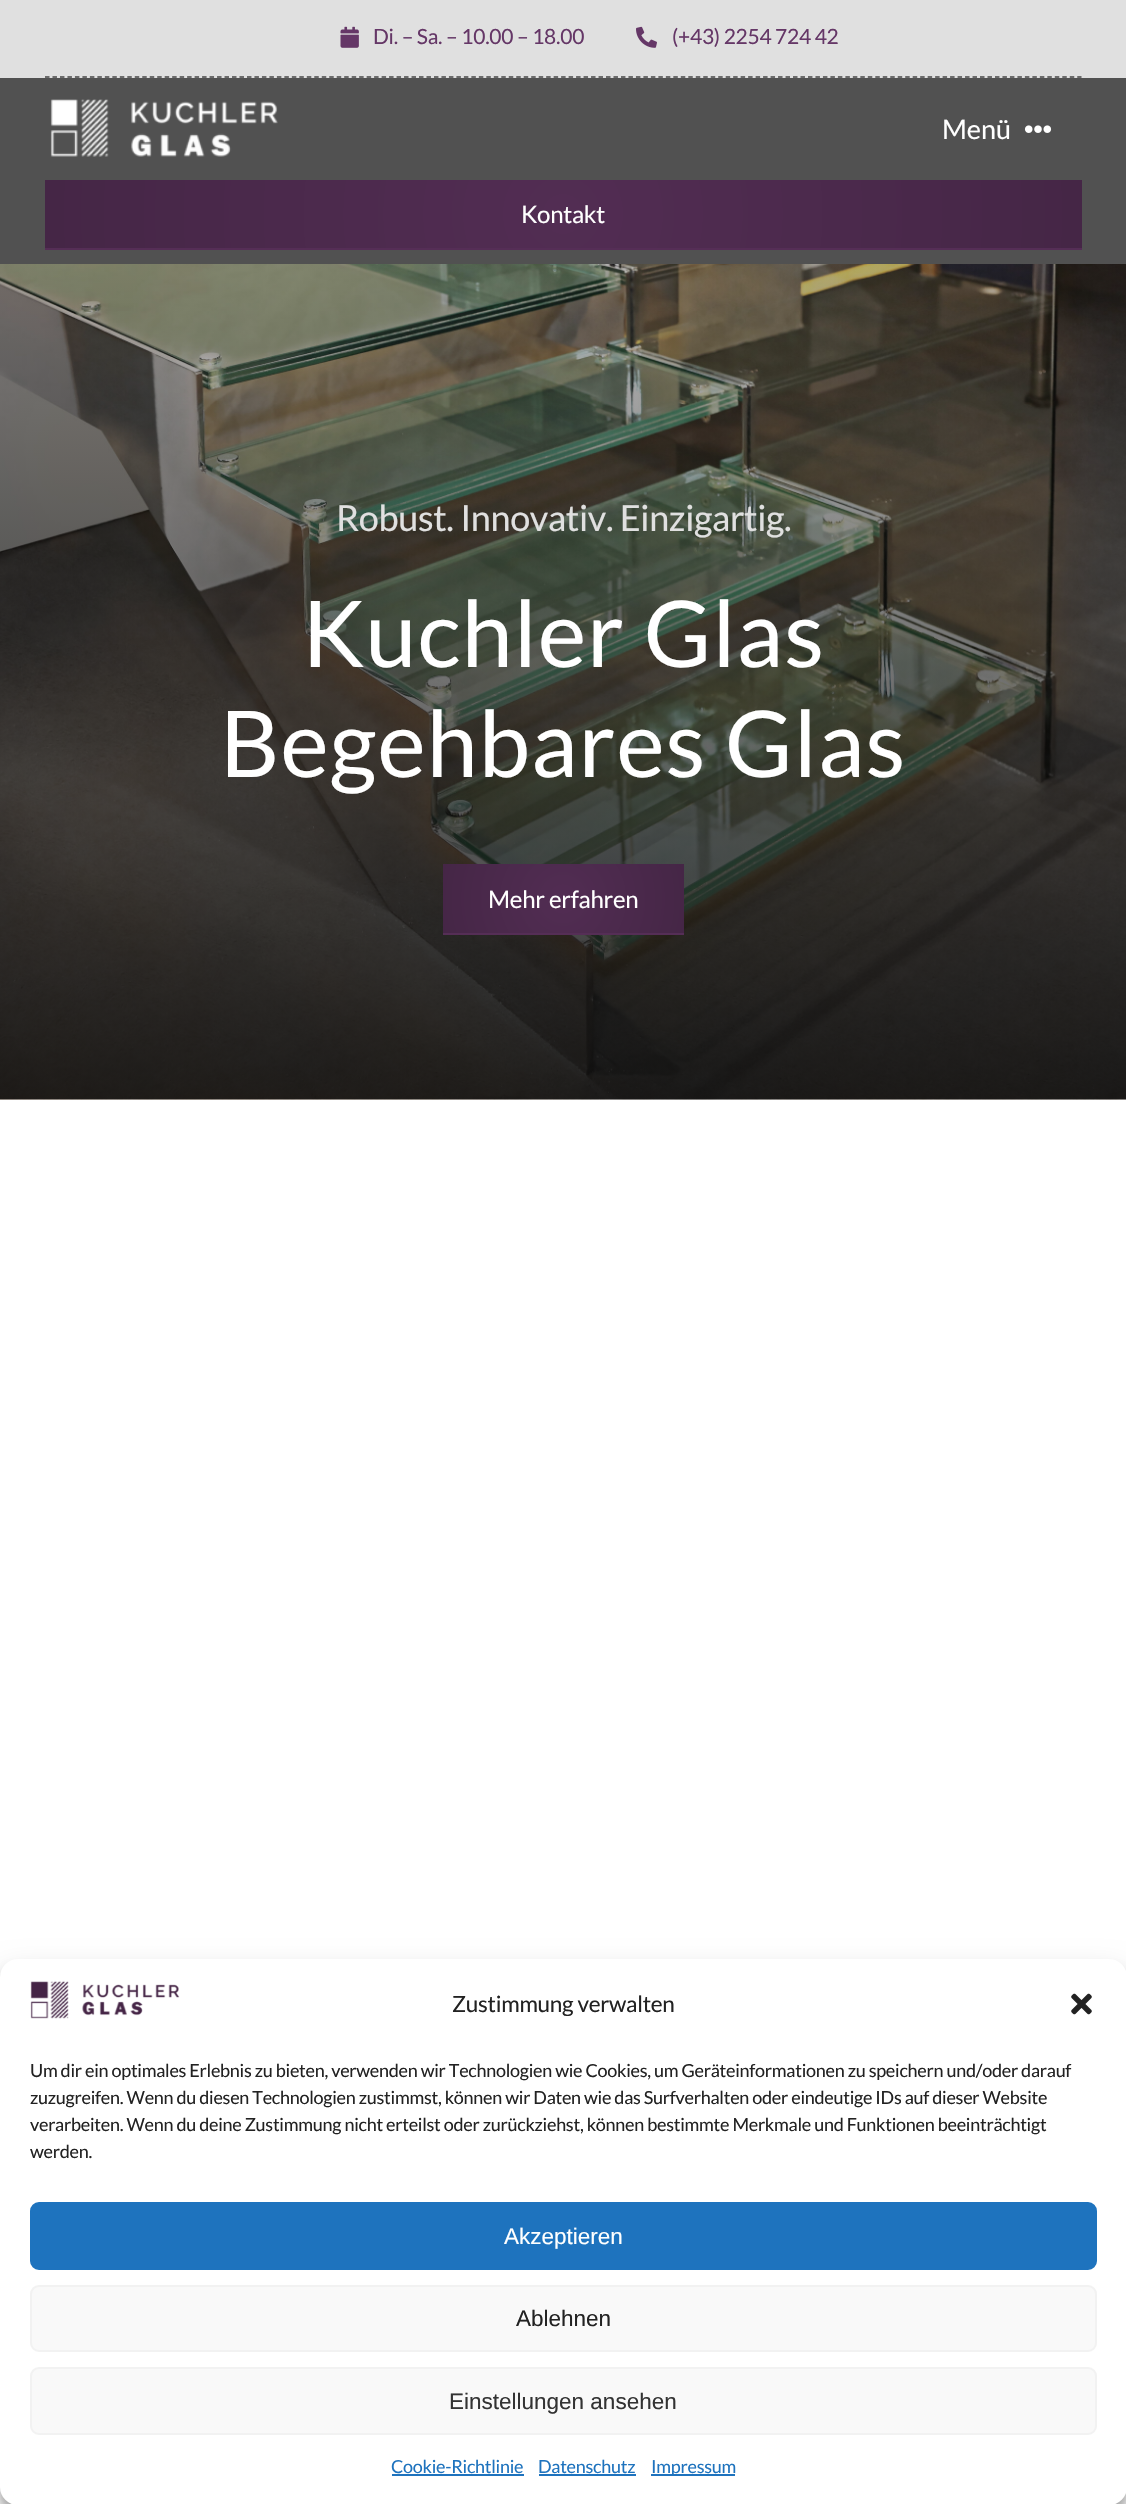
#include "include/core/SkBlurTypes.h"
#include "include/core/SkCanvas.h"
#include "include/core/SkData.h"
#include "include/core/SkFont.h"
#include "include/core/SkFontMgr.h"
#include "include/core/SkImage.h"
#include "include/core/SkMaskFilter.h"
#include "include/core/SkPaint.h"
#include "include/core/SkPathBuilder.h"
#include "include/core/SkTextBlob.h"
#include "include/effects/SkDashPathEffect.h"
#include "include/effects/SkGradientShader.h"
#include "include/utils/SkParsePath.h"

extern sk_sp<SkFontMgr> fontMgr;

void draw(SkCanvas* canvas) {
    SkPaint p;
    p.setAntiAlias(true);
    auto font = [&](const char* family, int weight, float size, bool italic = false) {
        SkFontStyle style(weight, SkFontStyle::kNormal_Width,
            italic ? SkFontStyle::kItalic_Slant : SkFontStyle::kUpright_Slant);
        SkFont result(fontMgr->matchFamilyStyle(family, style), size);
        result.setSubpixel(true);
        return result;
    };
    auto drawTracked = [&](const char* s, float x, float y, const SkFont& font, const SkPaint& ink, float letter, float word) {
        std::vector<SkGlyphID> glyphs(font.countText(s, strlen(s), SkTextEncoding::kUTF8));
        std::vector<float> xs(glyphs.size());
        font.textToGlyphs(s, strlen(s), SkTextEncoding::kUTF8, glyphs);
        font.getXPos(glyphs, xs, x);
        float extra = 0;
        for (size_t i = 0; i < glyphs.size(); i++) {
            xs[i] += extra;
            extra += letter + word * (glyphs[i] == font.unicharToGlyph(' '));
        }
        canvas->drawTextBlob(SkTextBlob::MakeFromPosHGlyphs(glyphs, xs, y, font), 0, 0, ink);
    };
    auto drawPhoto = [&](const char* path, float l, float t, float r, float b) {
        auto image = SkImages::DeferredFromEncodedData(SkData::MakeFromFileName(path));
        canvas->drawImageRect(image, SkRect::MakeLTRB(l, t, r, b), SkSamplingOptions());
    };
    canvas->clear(0xFFFFFFFF);
    p.setColor(0xFFE0E0E0);
    canvas->drawRect(SkRect::MakeLTRB(0, 0, 1126, 78), p);
    p.setStyle(SkPaint::kStroke_Style);
    p.setStrokeWidth(1.5f);
    p.setColor(0xFF454545);
    p.setPathEffect(SkDashPathEffect::Make({{4.5f, 2.98f}}, 0));
    canvas->drawPath(SkPathBuilder().moveTo(45, 77).lineTo(1081.5f, 77).detach(), p);
    p.setPathEffect(nullptr);
    drawPhoto("media/1.png", 340, 26, 359, 48);
    auto font1 = font("Lato", 400, 21);
    p.setStyle(SkPaint::kFill_Style);
    p.setColor(0xFF653767);
    drawTracked("Di. – Sa. – 10.00 – 18.00", 373, 44, font1, p, -0.26f, 0);
    drawPhoto("media/2.png", 636, 26, 657, 48);
    drawTracked("(+43) 2254 724 42", 672, 44, font1, p, -0.26f, 0);
    p.setColor(0xFF515151);
    canvas->drawRect(SkRect::MakeLTRB(0, 78, 1126, 264), p);
    drawPhoto("media/3.png", 50, 99, 278, 157);
    auto font2 = font("Lato", 400, 27);
    p.setColor(0xFFFFFFFF);
    canvas->drawString("Menü", 942, 139, font2, p);
    drawPhoto("media/4.png", 1024, 125, 1052, 133);
    {
        const SkColor colors[] = {0xFF522D53, 0xFF452646};
        const float stops[] = {0, 1};
        p.setShader(SkGradientShader::MakeRadial({563, 214}, 519, colors, stops, 2, SkTileMode::kClamp));
        p.setAlpha(255);
    }
    canvas->drawRect(SkRect::MakeLTRB(45, 180, 1082, 248), p);
    p.setShader(nullptr);
    p.setColor(0xFF552E56);
    canvas->drawRect(SkRect::MakeLTRB(45, 248, 1082, 250), p);
    auto font3 = font("Lato", 400, 24);
    p.setColor(0xFFFFFFFF);
    drawTracked("Kontakt", 521, 223, font3, p, -0.26f, 0);
    drawPhoto("media/5.png", 0, 264, 1126, 1100);
    auto font4 = font("Lato", 400, 36);
    p.setColor(0xFFE0E0E0);
    drawTracked("Robust. Innovativ. Einzigartig.", 336, 531, font4, p, -0.35f, 0);
    auto font5 = font("Lato", 400, 92);
    p.setColor(0xFFFFFFFF);
    drawTracked("Kuchler Glas", 302, 667, font5, p, 0.9f, 0);
    drawTracked("Begehbares Glas", 220, 777, font5, p, 0.9f, 0);
    {
        const SkColor colors[] = {0xFF522D53, 0xFF452646};
        const float stops[] = {0, 1};
        p.setShader(SkGradientShader::MakeRadial({563, 899}, 126, colors, stops, 2, SkTileMode::kClamp));
        p.setAlpha(255);
    }
    canvas->drawRect(SkRect::MakeLTRB(443, 864, 684, 933), p);
    p.setShader(nullptr);
    p.setColor(0xFF552E56);
    canvas->drawRect(SkRect::MakeLTRB(443, 933, 684, 935), p);
    p.setColor(0xFFFFFFFF);
    drawTracked("Mehr erfahren", 488, 908, font3, p, -0.26f, 0);
    p.setColor(0x3B000000);
    p.setMaskFilter(SkMaskFilter::MakeBlur(kNormal_SkBlurStyle, 4.5f));
    canvas->drawRoundRect(SkRect::MakeLTRB(0, 1968, 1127, 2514), 18, 18, p);
    p.setMaskFilter(nullptr);
    p.setColor(0x30000000);
    p.setMaskFilter(SkMaskFilter::MakeBlur(kNormal_SkBlurStyle, 15));
    canvas->drawRoundRect(SkRect::MakeLTRB(0, 1974, 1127, 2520), 18, 18, p);
    p.setMaskFilter(nullptr);
    p.setColor(0xFFFFFFFF);
    canvas->drawRoundRect(SkRect::MakeLTRB(0, 1959, 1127, 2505), 18, 18, p);
    drawPhoto("media/6.png", 30, 1981, 180, 2019);
    auto font6 = font("Lato", 400, 22.5f);
    p.setColor(0xFF222222);
    drawTracked("Zustimmung verwalten", 452, 2012, font6, p, -0.26f, 0);
    drawPhoto("media/7.png", 1071, 1993, 1092, 2015);
    auto font7 = font("Lato", 400, 18);
    {
        const struct { const char* s; float x, y; } items[] = {
            {"Um dir ein optimales Erlebnis zu bieten, verwenden wir Technologien wie Cookies, um Geräteinformationen zu speichern und/oder darauf", 30, 2077},
            {"zuzugreifen. Wenn du diesen Technologien zustimmst, können wir Daten wie das Surfverhalten oder eindeutige IDs auf dieser Website", 30, 2104},
            {"verarbeiten. Wenn du deine Zustimmung nicht erteilst oder zurückziehst, können bestimmte Merkmale und Funktionen beeinträchtigt", 30, 2131},
            {"werden.", 30, 2158},
        };
        for (auto [s, x, y] : items) {
            drawTracked(s, x, y, font7, p, -0.26f, 0);
        }
    }
    p.setColor(0xFF1E73BE);
    canvas->drawRoundRect(SkRect::MakeLTRB(31, 2203, 1096, 2269), 8, 8, p);
    p.setStyle(SkPaint::kStroke_Style);
    p.setStrokeWidth(2);
    canvas->drawRoundRect(SkRect::MakeLTRB(31, 2203, 1096, 2269), 8, 8, p);
    auto font8 = font("Liberation Sans", 400, 22.5f);
    p.setStyle(SkPaint::kFill_Style);
    p.setColor(0xFFFFFFFF);
    canvas->drawString("Akzeptieren", 504, 2244, font8, p);
    p.setColor(0xFFF9F9F9);
    canvas->drawRoundRect(SkRect::MakeLTRB(31, 2286, 1096, 2351), 8, 8, p);
    p.setStyle(SkPaint::kStroke_Style);
    p.setColor(0xFFF2F2F2);
    canvas->drawRoundRect(SkRect::MakeLTRB(31, 2286, 1096, 2351), 8, 8, p);
    p.setStyle(SkPaint::kFill_Style);
    p.setColor(0xFF222222);
    canvas->drawString("Ablehnen", 516, 2326, font8, p);
    p.setColor(0xFFF9F9F9);
    canvas->drawRoundRect(SkRect::MakeLTRB(31, 2368, 1096, 2434), 8, 8, p);
    p.setStyle(SkPaint::kStroke_Style);
    p.setColor(0xFFF2F2F2);
    canvas->drawRoundRect(SkRect::MakeLTRB(31, 2368, 1096, 2434), 8, 8, p);
    p.setStyle(SkPaint::kFill_Style);
    p.setColor(0xFF333333);
    canvas->drawString("Einstellungen ansehen", 449, 2409, font8, p);
    p.setColor(0xFF1E73BE);
    drawTracked("Cookie-Richtlinie", 391, 2473, font7, p, -0.26f, 0);
    canvas->drawRect(SkRect::MakeLTRB(392, 2474, 524, 2476), p);
    drawTracked("Datenschutz", 538, 2473, font7, p, -0.26f, 0);
    canvas->drawRect(SkRect::MakeLTRB(539, 2474, 636, 2476), p);
    canvas->drawRect(SkRect::MakeLTRB(651, 2474, 735, 2476), p);
    drawTracked("Impressum", 651, 2473, font7, p, -0.26f, 0);
}
